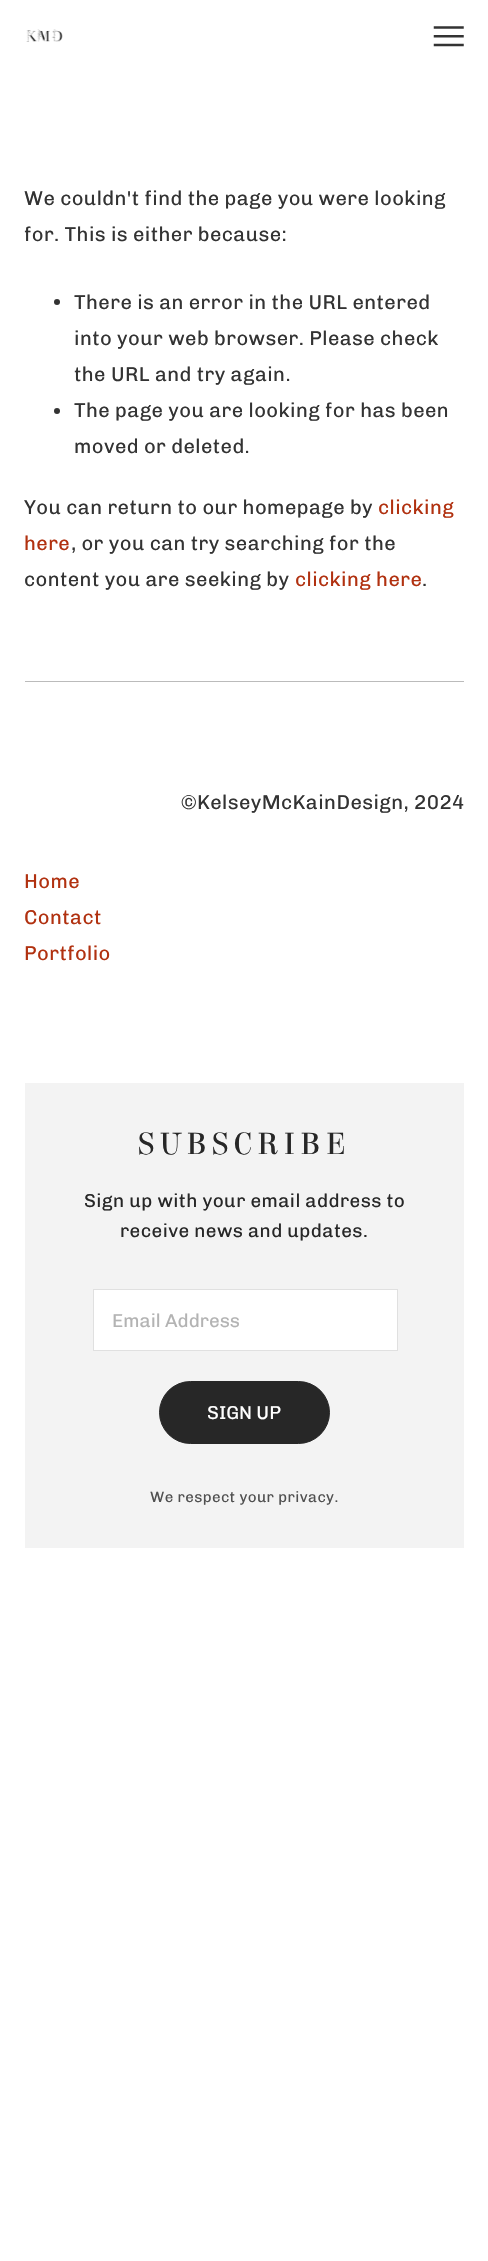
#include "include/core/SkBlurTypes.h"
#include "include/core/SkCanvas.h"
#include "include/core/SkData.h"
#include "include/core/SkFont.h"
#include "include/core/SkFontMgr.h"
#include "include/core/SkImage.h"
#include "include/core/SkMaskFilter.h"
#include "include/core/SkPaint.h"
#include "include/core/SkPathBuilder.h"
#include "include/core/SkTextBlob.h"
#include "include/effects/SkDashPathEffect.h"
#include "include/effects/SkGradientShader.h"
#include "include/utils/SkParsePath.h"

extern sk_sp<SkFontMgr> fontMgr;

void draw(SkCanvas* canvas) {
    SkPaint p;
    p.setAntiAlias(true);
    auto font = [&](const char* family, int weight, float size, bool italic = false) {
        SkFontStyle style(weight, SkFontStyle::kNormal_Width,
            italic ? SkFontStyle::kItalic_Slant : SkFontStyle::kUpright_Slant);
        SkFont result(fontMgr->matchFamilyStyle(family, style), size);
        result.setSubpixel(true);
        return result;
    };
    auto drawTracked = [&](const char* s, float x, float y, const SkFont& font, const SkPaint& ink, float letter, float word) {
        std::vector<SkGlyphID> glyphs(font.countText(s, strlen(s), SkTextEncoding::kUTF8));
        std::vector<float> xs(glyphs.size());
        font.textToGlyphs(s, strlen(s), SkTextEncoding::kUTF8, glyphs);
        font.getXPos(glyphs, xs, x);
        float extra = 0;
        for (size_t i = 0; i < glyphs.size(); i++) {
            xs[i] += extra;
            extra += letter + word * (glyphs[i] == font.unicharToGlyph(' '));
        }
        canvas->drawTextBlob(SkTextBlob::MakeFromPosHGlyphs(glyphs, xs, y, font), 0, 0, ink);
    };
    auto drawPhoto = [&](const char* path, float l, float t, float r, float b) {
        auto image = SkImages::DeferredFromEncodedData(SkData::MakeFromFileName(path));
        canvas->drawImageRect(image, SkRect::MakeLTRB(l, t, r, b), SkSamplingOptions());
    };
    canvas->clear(0xFFFFFFFF);
    drawPhoto("media/1.png", 26, 29, 63, 42);
    drawPhoto("media/2.png", 433, 26, 464, 47);
    auto font1 = font("Chivo", 400, 20);
    p.setColor(0xFF333333);
    drawTracked("We couldn't find the page you were looking", 24, 205, font1, p, 0.4f, 0);
    drawTracked("for. This is either because:", 24, 241, font1, p, 0.4f, 0);
    canvas->drawCircle(57, 302, 3, p);
    {
        const struct { const char* s; float x, y; } items[] = {
            {"There is an error in the URL entered", 74, 309},
            {"into your web browser. Please check", 74, 345},
            {"the URL and try again.", 74, 381},
        };
        for (auto [s, x, y] : items) {
            drawTracked(s, x, y, font1, p, 0.4f, 0);
        }
    }
    canvas->drawCircle(57, 411, 3, p);
    {
        const struct { const char* s; float x, y; } items[] = {
            {"The page you are looking for has been", 74, 417},
            {"moved or deleted.", 74, 453},
            {"You can return to our homepage by", 24, 514},
        };
        for (auto [s, x, y] : items) {
            drawTracked(s, x, y, font1, p, 0.4f, 0);
        }
    }
    p.setColor(0xFFB13110);
    drawTracked("clicking", 378, 514, font1, p, 0.4f, 0);
    drawTracked("here", 24, 550, font1, p, 0.4f, 0);
    p.setColor(0xFF333333);
    drawTracked(", or you can try searching for the", 71, 550, font1, p, 0.4f, 0);
    drawTracked("content you are seeking by", 24, 586, font1, p, 0.4f, 0);
    p.setColor(0xFFB13110);
    drawTracked("clicking here", 295, 586, font1, p, 0.4f, 0);
    p.setColor(0xFF333333);
    drawTracked(".", 422, 586, font1, p, 0.4f, 0);
    p.setColor(0xFFBBBBBB);
    canvas->drawRect(SkRect::MakeLTRB(25, 681, 464, 682), p);
    p.setColor(0xFF333333);
    drawTracked("©KelseyMcKainDesign, 2024", 181, 809, font1, p, 0.4f, 0);
    p.setColor(0xFFB13110);
    {
        const struct { const char* s; float x, y; } items[] = {
            {"Home", 24, 888},
            {"Contact", 24, 924},
            {"Portfolio", 24, 960},
        };
        for (auto [s, x, y] : items) {
            drawTracked(s, x, y, font1, p, 0.4f, 0);
        }
    }
    p.setColor(0xFFF3F3F3);
    canvas->drawRect(SkRect::MakeLTRB(25, 1083, 464, 1548), p);
    auto font2 = font("Elsie", 400, 32.5f);
    p.setColor(0xFF272727);
    drawTracked("SUBSCRIBE", 138, 1154, font2, p, 4.9f, 0);
    auto font3 = font("Chivo", 400, 18.75f);
    drawTracked("Sign up with your email address to", 84, 1207, font3, p, 0.4f, 0);
    drawTracked("receive news and updates.", 120, 1237, font3, p, 0.4f, 0);
    p.setColor(0xFFFFFFFF);
    canvas->drawRect(SkRect::MakeLTRB(93.5f, 1289.5f, 397.5f, 1350.5f), p);
    p.setStyle(SkPaint::kStroke_Style);
    p.setStrokeWidth(1);
    p.setColor(0xFFE0E0E0);
    canvas->drawRect(SkRect::MakeLTRB(93.5f, 1289.5f, 397.5f, 1350.5f), p);
    p.setStyle(SkPaint::kFill_Style);
    p.setColor(0xFFB3B3B3);
    canvas->drawString("Email Address", 112, 1327, font3, p);
    p.setColor(0xFF272727);
    canvas->drawRoundRect(SkRect::MakeLTRB(159.5f, 1381.5f, 329.5f, 1443.5f), 31, 31, p);
    p.setStyle(SkPaint::kStroke_Style);
    canvas->drawRoundRect(SkRect::MakeLTRB(159.5f, 1381.5f, 329.5f, 1443.5f), 31, 31, p);
    p.setStyle(SkPaint::kFill_Style);
    p.setColor(0xFFFFFFFF);
    canvas->drawString("SIGN UP", 207, 1419, font3, p);
    auto font4 = font("Chivo", 400, 15);
    p.setColor(0xFF505050);
    drawTracked("We respect your privacy.", 150, 1502, font4, p, 0.4f, 0);
}
